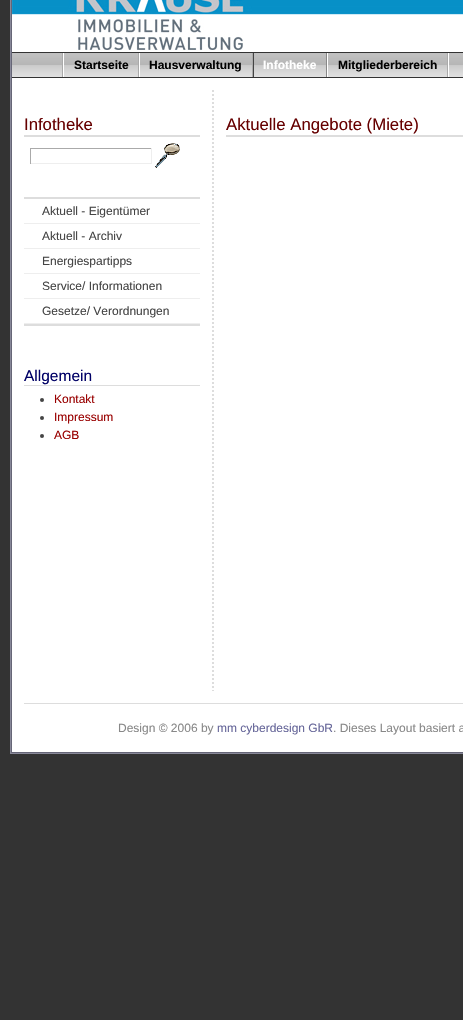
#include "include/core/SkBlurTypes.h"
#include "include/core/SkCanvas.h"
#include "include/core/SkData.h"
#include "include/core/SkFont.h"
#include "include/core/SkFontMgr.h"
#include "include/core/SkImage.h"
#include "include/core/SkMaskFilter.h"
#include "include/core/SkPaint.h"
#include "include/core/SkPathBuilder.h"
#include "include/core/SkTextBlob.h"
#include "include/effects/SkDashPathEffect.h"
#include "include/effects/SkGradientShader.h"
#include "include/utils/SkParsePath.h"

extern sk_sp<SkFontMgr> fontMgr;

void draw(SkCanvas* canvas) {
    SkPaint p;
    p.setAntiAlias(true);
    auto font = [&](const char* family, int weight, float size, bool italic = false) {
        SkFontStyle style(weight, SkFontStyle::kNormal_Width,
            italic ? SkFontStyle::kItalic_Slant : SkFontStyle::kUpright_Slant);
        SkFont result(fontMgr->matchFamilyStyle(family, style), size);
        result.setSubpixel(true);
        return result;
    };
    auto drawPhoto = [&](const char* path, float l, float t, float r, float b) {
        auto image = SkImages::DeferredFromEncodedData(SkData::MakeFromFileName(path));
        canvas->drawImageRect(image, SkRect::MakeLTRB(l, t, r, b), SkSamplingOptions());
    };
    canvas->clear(0xFF333333);
    p.setStyle(SkPaint::kStroke_Style);
    p.setStrokeWidth(1);
    p.setColor(0xFF888899);
    canvas->drawRect(SkRect::MakeLTRB(10.5f, -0.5f, 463.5f, 753.5f), p);
    p.setStyle(SkPaint::kFill_Style);
    p.setColor(0xFFFFFFFF);
    canvas->drawRect(SkRect::MakeLTRB(12, 78, 463, 752), p);
    p.setStyle(SkPaint::kStroke_Style);
    p.setColor(0xFF666677);
    canvas->drawRect(SkRect::MakeLTRB(11.5f, -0.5f, 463.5f, 752.5f), p);
    drawPhoto("media/1.png", 12, 0, 463, 52);
    drawPhoto("media/2.png", 12, 53, 463, 77);
    p.setStyle(SkPaint::kFill_Style);
    {
        const struct { float l, t, r, b; SkColor color; } items[] = {
            {62, 53, 63, 77, 0xFFAAAAAA},
            {138, 53, 139, 77, 0xFFAAAAAA},
            {63, 53, 64, 77, 0xFFFFFFFF},
        };
        for (auto [l, t, r, b, color] : items) {
            p.setColor(color);
            canvas->drawRect(SkRect::MakeLTRB(l, t, r, b), p);
        }
    }
    auto font1 = font("Liberation Sans", 700, 12);
    p.setColor(0xFF000000);
    canvas->drawString("Startseite", 74, 69, font1, p);
    p.setColor(0xFFAAAAAA);
    canvas->drawRect(SkRect::MakeLTRB(252, 53, 253, 77), p);
    p.setColor(0xFFFFFFFF);
    canvas->drawRect(SkRect::MakeLTRB(139, 53, 140, 77), p);
    p.setColor(0xFF000000);
    canvas->drawString("Hausverwaltung", 149, 69, font1, p);
    p.setColor(0xFF888888);
    canvas->drawRect(SkRect::MakeLTRB(326, 53, 327, 77), p);
    p.setColor(0xFF444444);
    canvas->drawRect(SkRect::MakeLTRB(253, 53, 254, 77), p);
    p.setColor(0xFFFFFFFF);
    canvas->drawString("Infotheke", 263, 69, font1, p);
    p.setColor(0xFFAAAAAA);
    canvas->drawRect(SkRect::MakeLTRB(447, 53, 448, 77), p);
    p.setColor(0xFFFFFFFF);
    canvas->drawRect(SkRect::MakeLTRB(327, 53, 328, 77), p);
    p.setColor(0xFF000000);
    canvas->drawString("Mitgliederbereich", 338, 69, font1, p);
    p.setColor(0xFFFFFFFF);
    canvas->drawRect(SkRect::MakeLTRB(448, 53, 449, 77), p);
    p.setColor(0xFFDDDDDD);
    canvas->drawRect(SkRect::MakeLTRB(24, 135, 200, 137), p);
    auto font2 = font("Liberation Sans", 400, 16.75f);
    p.setColor(0xFF660000);
    canvas->drawString("Infotheke", 24, 130, font2, p);
    {
        const struct { float l, t, r, b; SkColor color; } items[] = {
            {30, 148, 152, 149, 0xFFAAAAAA},
            {151, 148, 152, 164, 0xFFEEEEEE},
            {30, 163, 152, 164, 0xFFEEEEEE},
            {30, 148, 31, 164, 0xFFAAAAAA},
        };
        for (auto [l, t, r, b, color] : items) {
            p.setColor(color);
            canvas->drawRect(SkRect::MakeLTRB(l, t, r, b), p);
        }
    }
    drawPhoto("media/3.png", 155, 143, 180, 168);
    {
        const struct { float l, t, r, b; SkColor color; } items[] = {
            {24, 197, 200, 199, 0xFFDDDDDD},
            {24, 324, 200, 326, 0xFFDDDDDD},
            {24, 223, 200, 224, 0xFFEEEEEE},
        };
        for (auto [l, t, r, b, color] : items) {
            p.setColor(color);
            canvas->drawRect(SkRect::MakeLTRB(l, t, r, b), p);
        }
    }
    auto font3 = font("Liberation Sans", 400, 12);
    p.setColor(0xFF444444);
    canvas->drawString("Aktuell - Eigentümer", 42, 215, font3, p);
    p.setColor(0xFFEEEEEE);
    canvas->drawRect(SkRect::MakeLTRB(24, 248, 200, 249), p);
    p.setColor(0xFF444444);
    canvas->drawString("Aktuell - Archiv", 42, 240, font3, p);
    p.setColor(0xFFEEEEEE);
    canvas->drawRect(SkRect::MakeLTRB(24, 273, 200, 274), p);
    p.setColor(0xFF444444);
    canvas->drawString("Energiespartipps", 42, 265, font3, p);
    p.setColor(0xFFEEEEEE);
    canvas->drawRect(SkRect::MakeLTRB(24, 298, 200, 299), p);
    p.setColor(0xFF444444);
    canvas->drawString("Service/ Informationen", 42, 290, font3, p);
    p.setColor(0xFFEEEEEE);
    canvas->drawRect(SkRect::MakeLTRB(24, 323, 200, 324), p);
    p.setColor(0xFF444444);
    canvas->drawString("Gesetze/ Verordnungen", 42, 315, font3, p);
    p.setColor(0xFFDDDDDD);
    canvas->drawRect(SkRect::MakeLTRB(24, 385, 200, 386), p);
    auto font4 = font("Liberation Sans", 400, 15.5f);
    p.setColor(0xFF000066);
    canvas->drawString("Allgemein", 24, 381, font4, p);
    p.setColor(0xFF444444);
    canvas->drawCircle(42, 400, 2, p);
    p.setColor(0xFF990000);
    canvas->drawString("Kontakt", 54, 403, font3, p);
    p.setColor(0xFF444444);
    canvas->drawCircle(42, 418, 2, p);
    p.setColor(0xFF990000);
    canvas->drawString("Impressum", 54, 421, font3, p);
    p.setColor(0xFF444444);
    canvas->drawCircle(42, 436, 2, p);
    p.setColor(0xFF990000);
    canvas->drawString("AGB", 54, 439, font3, p);
    p.setStyle(SkPaint::kStroke_Style);
    p.setStrokeWidth(2);
    p.setColor(0xFFDDDDDD);
    p.setPathEffect(SkDashPathEffect::Make({{2, 2}}, 0));
    canvas->drawPath(SkPathBuilder().moveTo(213, 90).lineTo(213, 691).detach(), p);
    p.setPathEffect(nullptr);
    p.setStyle(SkPaint::kFill_Style);
    canvas->drawRect(SkRect::MakeLTRB(226, 135, 463, 137), p);
    p.setColor(0xFF660000);
    canvas->drawString("Aktuelle Angebote (Miete)", 226, 130, font2, p);
    p.setColor(0xFFDDDDDD);
    canvas->drawRect(SkRect::MakeLTRB(24, 703, 463, 704), p);
    p.setColor(0xFF888888);
    canvas->drawString("Design © 2006 by", 118, 732, font3, p);
    p.setColor(0xFF666699);
    canvas->drawString("mm cyberdesign GbR", 217, 732, font3, p);
    p.setColor(0xFF888888);
    canvas->drawString(". Dieses Layout basiert a", 333, 732, font3, p);
}
